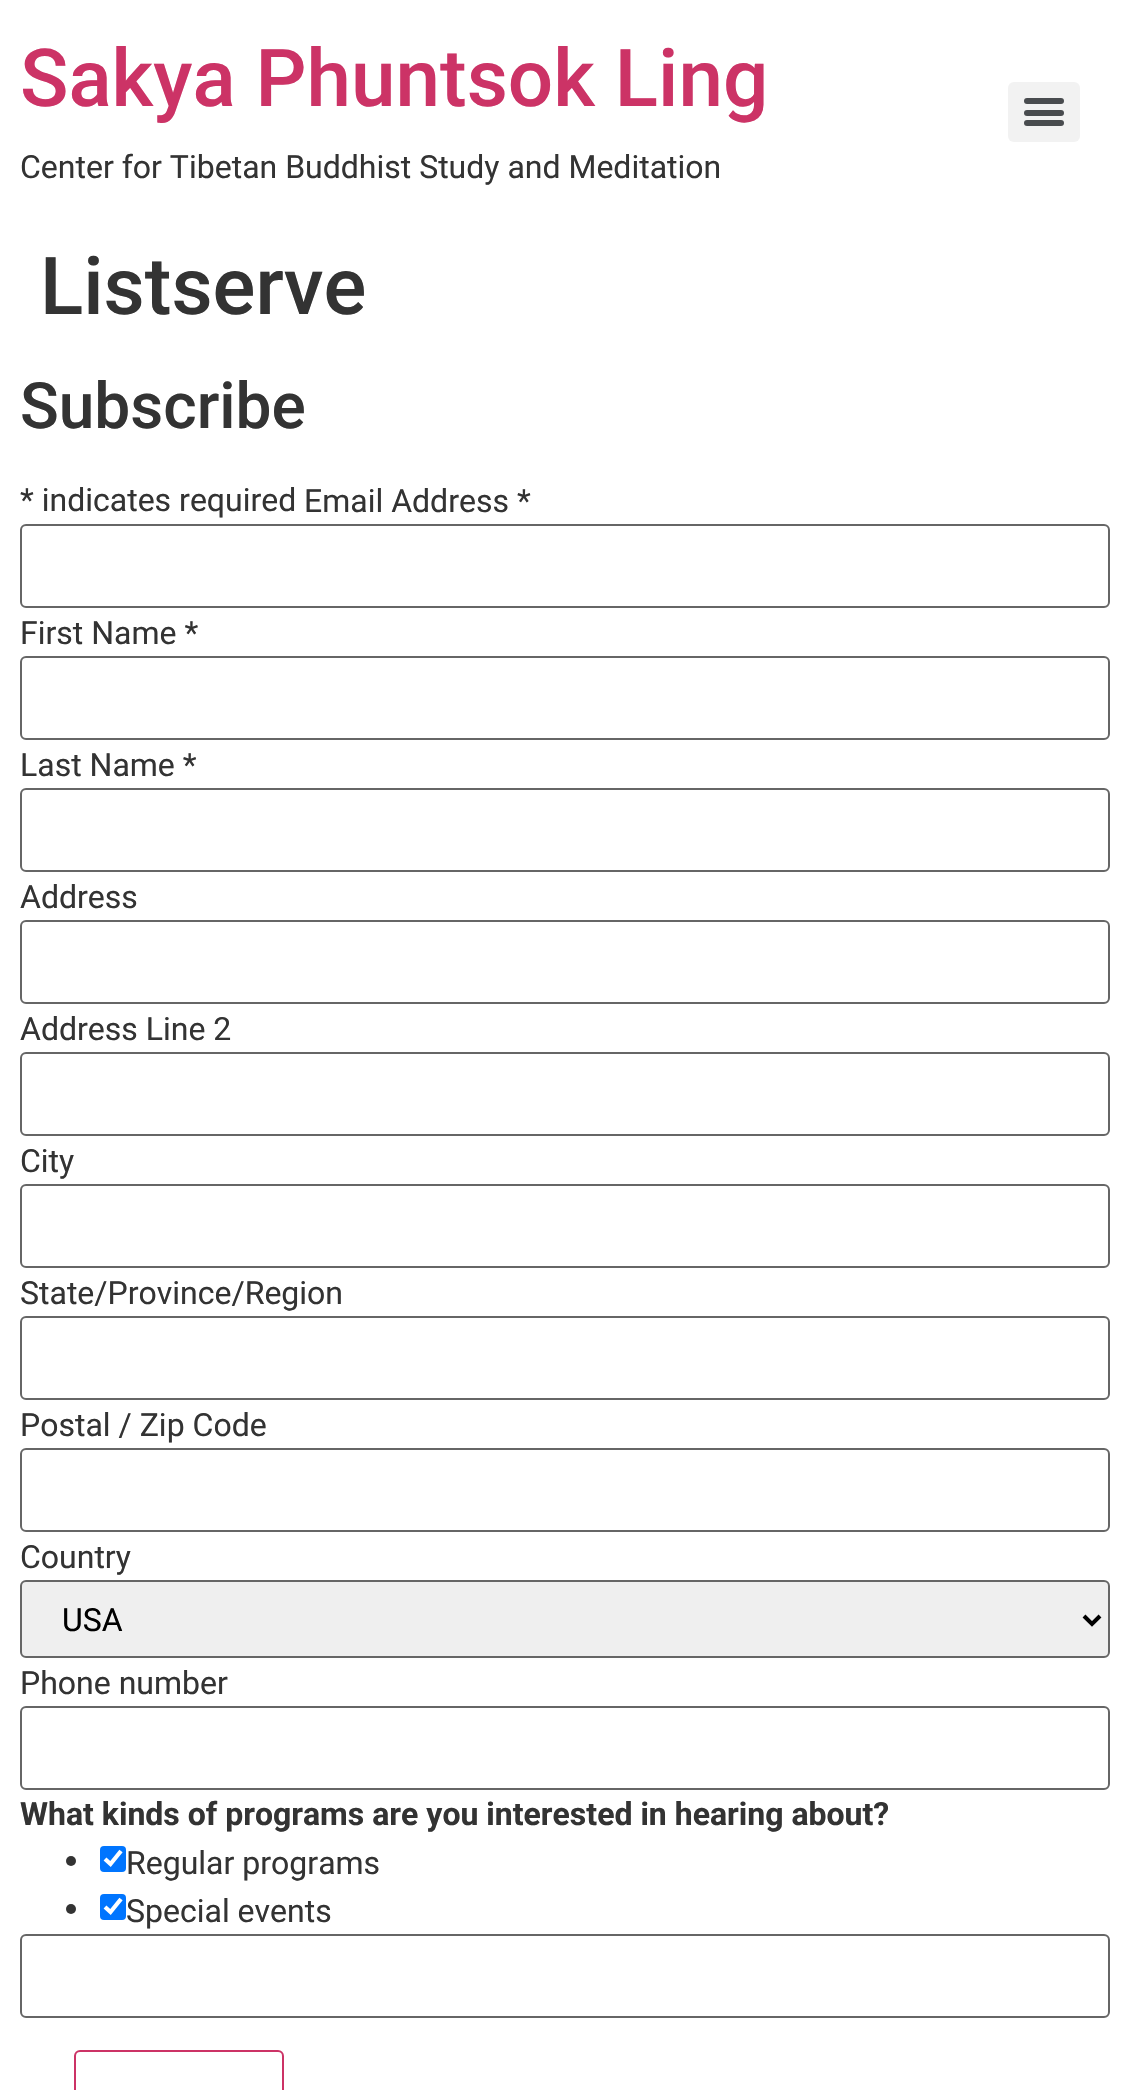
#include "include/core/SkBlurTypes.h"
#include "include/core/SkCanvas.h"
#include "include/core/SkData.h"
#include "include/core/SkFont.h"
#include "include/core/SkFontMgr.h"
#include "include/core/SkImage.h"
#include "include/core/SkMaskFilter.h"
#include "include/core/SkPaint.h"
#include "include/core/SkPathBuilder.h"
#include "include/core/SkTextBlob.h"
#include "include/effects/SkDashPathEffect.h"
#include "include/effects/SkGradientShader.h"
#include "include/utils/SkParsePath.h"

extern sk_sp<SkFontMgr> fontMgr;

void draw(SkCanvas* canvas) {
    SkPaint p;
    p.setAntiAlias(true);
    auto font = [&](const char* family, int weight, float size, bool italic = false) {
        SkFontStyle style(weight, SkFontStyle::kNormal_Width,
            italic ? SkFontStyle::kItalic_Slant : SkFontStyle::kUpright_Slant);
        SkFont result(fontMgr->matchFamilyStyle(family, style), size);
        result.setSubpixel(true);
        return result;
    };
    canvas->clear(0xFFFFFFFF);
    auto font1 = font("Roboto", 500, 80);
    p.setColor(0xFFCC3366);
    canvas->drawString("Sakya Phuntsok Ling", 20, 106, font1, p);
    auto font2 = font("Roboto", 400, 32);
    p.setColor(0xFF333333);
    canvas->drawString("Center for Tibetan Buddhist Study and Meditation", 20, 178, font2, p);
    p.setColor(0xFFF2F2F2);
    canvas->drawRoundRect(SkRect::MakeLTRB(1008, 82, 1080, 142), 6, 6, p);
    p.setColor(0xFF494C4F);
    canvas->drawRoundRect(SkRect::MakeLTRB(1024, 110, 1064, 116), 3, 3, p);
    canvas->drawRoundRect(SkRect::MakeLTRB(1024, 98, 1064, 104), 3, 3, p);
    canvas->drawRoundRect(SkRect::MakeLTRB(1024, 120, 1064, 126), 3, 3, p);
    p.setColor(0xFF333333);
    canvas->drawString("Listserve", 40, 314, font1, p);
    auto font3 = font("Roboto", 500, 64);
    canvas->drawString("Subscribe", 20, 428, font3, p);
    canvas->drawString("* indicates required", 20, 511, font2, p);
    canvas->drawString("Email Address *", 304, 512, font2, p);
    p.setStyle(SkPaint::kStroke_Style);
    p.setStrokeWidth(2);
    p.setColor(0xFF666666);
    canvas->drawRoundRect(SkRect::MakeLTRB(21, 525, 1109, 607), 5, 5, p);
    p.setStyle(SkPaint::kFill_Style);
    p.setColor(0xFF333333);
    canvas->drawString("First Name *", 20, 644, font2, p);
    p.setStyle(SkPaint::kStroke_Style);
    p.setColor(0xFF666666);
    canvas->drawRoundRect(SkRect::MakeLTRB(21, 657, 1109, 739), 5, 5, p);
    p.setStyle(SkPaint::kFill_Style);
    p.setColor(0xFF333333);
    canvas->drawString("Last Name *", 20, 776, font2, p);
    p.setStyle(SkPaint::kStroke_Style);
    p.setColor(0xFF666666);
    canvas->drawRoundRect(SkRect::MakeLTRB(21, 789, 1109, 871), 5, 5, p);
    p.setStyle(SkPaint::kFill_Style);
    p.setColor(0xFF333333);
    canvas->drawString("Address", 20, 908, font2, p);
    p.setStyle(SkPaint::kStroke_Style);
    p.setColor(0xFF666666);
    canvas->drawRoundRect(SkRect::MakeLTRB(21, 921, 1109, 1003), 5, 5, p);
    p.setStyle(SkPaint::kFill_Style);
    p.setColor(0xFF333333);
    canvas->drawString("Address Line 2", 20, 1040, font2, p);
    p.setStyle(SkPaint::kStroke_Style);
    p.setColor(0xFF666666);
    canvas->drawRoundRect(SkRect::MakeLTRB(21, 1053, 1109, 1135), 5, 5, p);
    p.setStyle(SkPaint::kFill_Style);
    p.setColor(0xFF333333);
    canvas->drawString("City", 20, 1172, font2, p);
    p.setStyle(SkPaint::kStroke_Style);
    p.setColor(0xFF666666);
    canvas->drawRoundRect(SkRect::MakeLTRB(21, 1185, 1109, 1267), 5, 5, p);
    p.setStyle(SkPaint::kFill_Style);
    p.setColor(0xFF333333);
    canvas->drawString("State/Province/Region", 20, 1304, font2, p);
    p.setStyle(SkPaint::kStroke_Style);
    p.setColor(0xFF666666);
    canvas->drawRoundRect(SkRect::MakeLTRB(21, 1317, 1109, 1399), 5, 5, p);
    p.setStyle(SkPaint::kFill_Style);
    p.setColor(0xFF333333);
    canvas->drawString("Postal / Zip Code", 20, 1436, font2, p);
    p.setStyle(SkPaint::kStroke_Style);
    p.setColor(0xFF666666);
    canvas->drawRoundRect(SkRect::MakeLTRB(21, 1449, 1109, 1531), 5, 5, p);
    p.setStyle(SkPaint::kFill_Style);
    p.setColor(0xFF333333);
    canvas->drawString("Country", 20, 1568, font2, p);
    p.setColor(0xFFEFEFEF);
    canvas->drawRoundRect(SkRect::MakeLTRB(21, 1581, 1109, 1657), 5, 5, p);
    p.setStyle(SkPaint::kStroke_Style);
    p.setColor(0xFF666666);
    canvas->drawRoundRect(SkRect::MakeLTRB(21, 1581, 1109, 1657), 5, 5, p);
    p.setStrokeWidth(4);
    p.setColor(0xFF000000);
    canvas->drawPath(SkPathBuilder().moveTo(1084, 1616).lineTo(1092, 1624).lineTo(1100, 1616).detach(), p);
    p.setStyle(SkPaint::kFill_Style);
    canvas->drawString("USA", 62, 1631, font2, p);
    p.setColor(0xFF333333);
    canvas->drawString("Phone number", 20, 1694, font2, p);
    p.setStyle(SkPaint::kStroke_Style);
    p.setStrokeWidth(2);
    p.setColor(0xFF666666);
    canvas->drawRoundRect(SkRect::MakeLTRB(21, 1707, 1109, 1789), 5, 5, p);
    auto font4 = font("Roboto", 700, 32);
    p.setStyle(SkPaint::kFill_Style);
    p.setColor(0xFF333333);
    canvas->drawString("What kinds of programs are you interested in hearing about?", 20, 1825, font4, p);
    canvas->drawCircle(71, 1861, 5, p);
    p.setColor(0xFF0075FF);
    canvas->drawRoundRect(SkRect::MakeLTRB(100, 1846, 126, 1872), 4, 4, p);
    p.setStyle(SkPaint::kStroke_Style);
    p.setStrokeWidth(4.2f);
    p.setColor(0xFFFFFFFF);
    canvas->drawPath(SkPathBuilder().moveTo(105, 1859).lineTo(110.5f, 1864).lineTo(121, 1851).detach(), p);
    p.setStyle(SkPaint::kFill_Style);
    p.setColor(0xFF333333);
    canvas->drawString("Regular programs", 126, 1874, font2, p);
    canvas->drawCircle(71, 1909, 5, p);
    p.setColor(0xFF0075FF);
    canvas->drawRoundRect(SkRect::MakeLTRB(100, 1894, 126, 1920), 4, 4, p);
    p.setStyle(SkPaint::kStroke_Style);
    p.setColor(0xFFFFFFFF);
    canvas->drawPath(SkPathBuilder().moveTo(105, 1907).lineTo(110.5f, 1912).lineTo(121, 1899).detach(), p);
    p.setStyle(SkPaint::kFill_Style);
    p.setColor(0xFF333333);
    canvas->drawString("Special events", 126, 1922, font2, p);
    p.setStyle(SkPaint::kStroke_Style);
    p.setStrokeWidth(2);
    p.setColor(0xFF666666);
    canvas->drawRoundRect(SkRect::MakeLTRB(21, 1935, 1109, 2017), 5, 5, p);
    p.setColor(0xFFCC3366);
    canvas->drawRoundRect(SkRect::MakeLTRB(75, 2051, 283, 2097), 5, 5, p);
}
